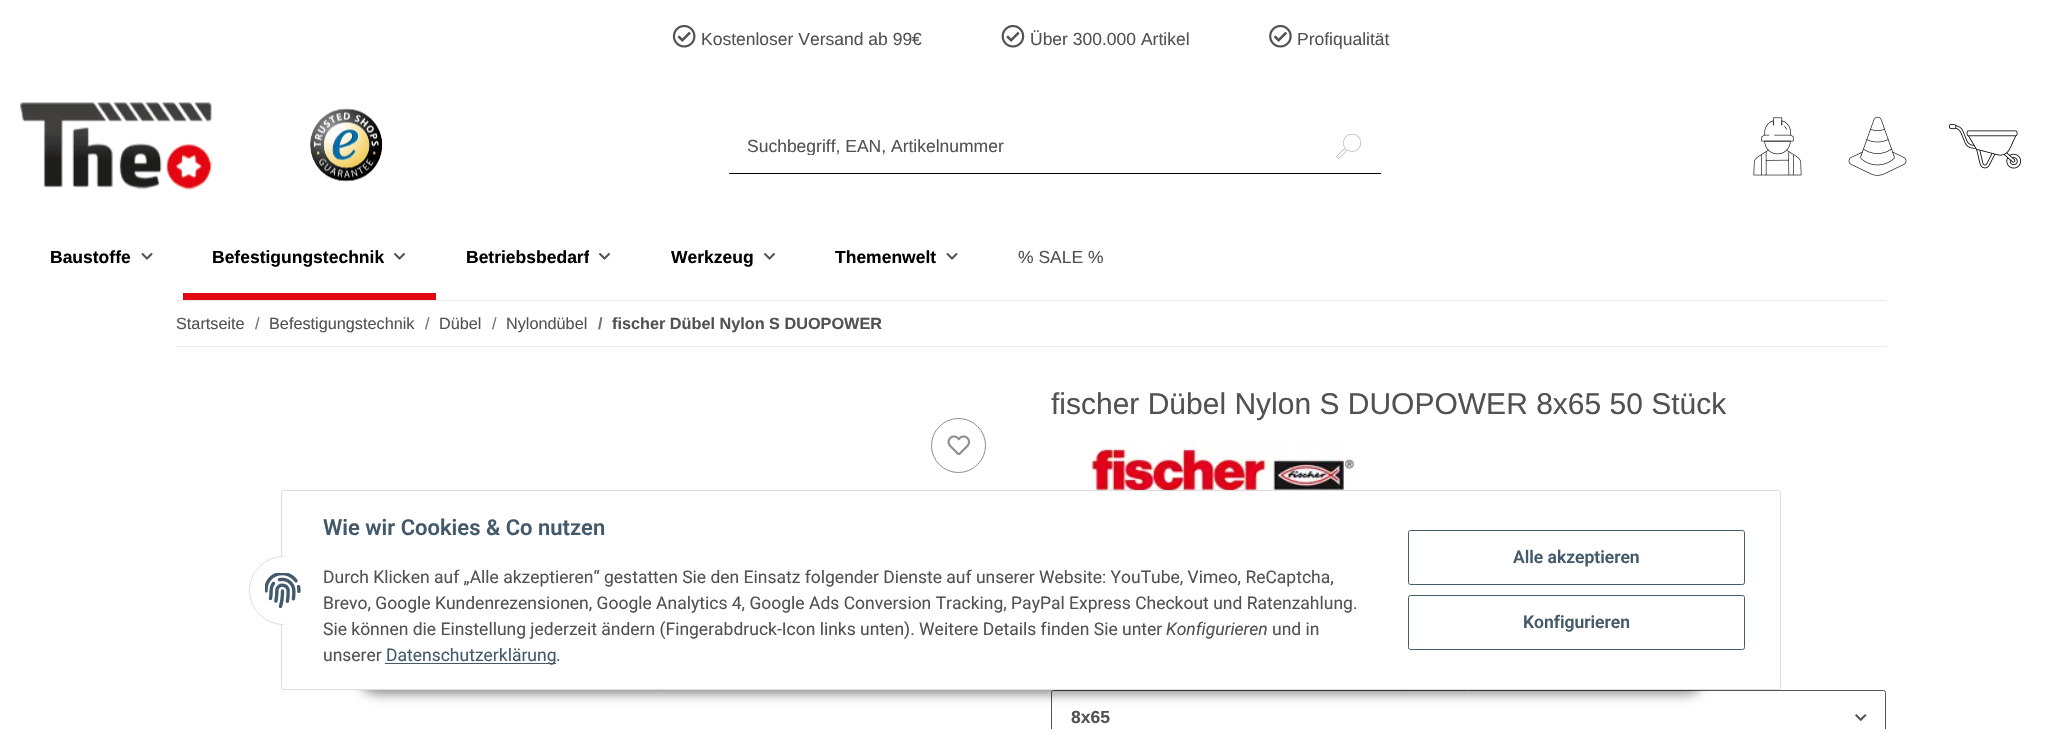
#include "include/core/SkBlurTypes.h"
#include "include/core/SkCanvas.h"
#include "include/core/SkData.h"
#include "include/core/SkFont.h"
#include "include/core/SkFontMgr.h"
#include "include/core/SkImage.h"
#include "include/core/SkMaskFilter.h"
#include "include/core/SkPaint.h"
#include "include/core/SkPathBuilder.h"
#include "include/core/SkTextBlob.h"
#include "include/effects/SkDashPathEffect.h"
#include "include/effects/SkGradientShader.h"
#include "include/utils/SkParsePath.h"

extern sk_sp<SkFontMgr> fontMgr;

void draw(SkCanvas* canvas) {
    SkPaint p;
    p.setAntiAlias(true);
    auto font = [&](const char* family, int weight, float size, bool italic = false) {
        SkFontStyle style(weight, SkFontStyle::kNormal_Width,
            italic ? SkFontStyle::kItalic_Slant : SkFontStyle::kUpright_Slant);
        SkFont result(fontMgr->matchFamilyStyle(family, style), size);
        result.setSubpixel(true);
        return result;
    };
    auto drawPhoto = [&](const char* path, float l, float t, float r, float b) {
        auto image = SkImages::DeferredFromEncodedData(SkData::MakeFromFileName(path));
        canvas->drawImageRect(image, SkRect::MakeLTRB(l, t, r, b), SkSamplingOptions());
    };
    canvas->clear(0xFFFFFFFF);
    drawPhoto("media/1.png", 672, 24, 696, 48);
    auto font1 = font("Liberation Sans", 400, 17.5f);
    p.setColor(0xFF525252);
    canvas->drawString("Kostenloser Versand ab 99€", 701, 45, font1, p);
    drawPhoto("media/2.png", 1001, 25, 1025, 48);
    canvas->drawString("Über 300.000 Artikel", 1030, 45, font1, p);
    drawPhoto("media/3.png", 1269, 24, 1292, 48);
    canvas->drawString("Profiqualität", 1297, 45, font1, p);
    drawPhoto("media/4.png", 20, 102, 212, 190);
    drawPhoto("media/5.png", 310, 108, 383, 182);
    p.setColor(0xFF000000);
    canvas->drawRect(SkRect::MakeLTRB(729, 173, 1381, 174), p);
    canvas->save();
    canvas->clipRect(SkRect::MakeLTRB(748, 135, 1299, 155));
    p.setColor(0xFF525252);
    canvas->drawString("Suchbegriff, EAN, Artikelnummer", 747, 152, font1, p);
    canvas->restore();
    drawPhoto("media/6.png", 1336, 134, 1361, 159);
    drawPhoto("media/7.png", 1753, 117, 1802, 176);
    drawPhoto("media/8.png", 1848, 116, 1907, 176);
    drawPhoto("media/9.png", 1949, 124, 2021, 169);
    auto font2 = font("Liberation Sans", 700, 17.5f);
    p.setColor(0xFF000000);
    canvas->drawString("Baustoffe", 50, 263, font2, p);
    drawPhoto("media/10.png", 141, 253, 153, 260);
    canvas->drawString("Befestigungstechnik", 212, 263, font2, p);
    drawPhoto("media/11.png", 394, 253, 405, 260);
    p.setColor(0xFFE30613);
    canvas->drawRect(SkRect::MakeLTRB(183, 293, 436, 300), p);
    canvas->save();
    canvas->clipRect(SkRect::MakeLTRB(466, 244, 589, 270));
    p.setColor(0xFF000000);
    canvas->drawString("Betriebsbedarf", 466, 263, font2, p);
    canvas->restore();
    drawPhoto("media/11.png", 599, 253, 610, 260);
    canvas->drawString("Werkzeug", 671, 263, font2, p);
    drawPhoto("media/11.png", 764, 253, 775, 260);
    canvas->drawString("Themenwelt", 835, 263, font2, p);
    drawPhoto("media/10.png", 946, 253, 958, 260);
    p.setColor(0xFF525252);
    canvas->drawString("% SALE %", 1018, 263, font1, p);
    p.setColor(0xFFEBEBEB);
    canvas->drawRect(SkRect::MakeLTRB(176, 300, 1886, 301), p);
    canvas->drawRect(SkRect::MakeLTRB(176, 346, 1886, 347), p);
    auto font3 = font("Liberation Sans", 400, 16.25f);
    p.setColor(0xFF525252);
    canvas->drawString("Startseite", 176, 329, font3, p);
    p.setColor(0xFF707070);
    canvas->drawString("/", 255, 329, font3, p);
    p.setColor(0xFF525252);
    canvas->drawString("Befestigungstechnik", 269, 329, font3, p);
    p.setColor(0xFF707070);
    canvas->drawString("/", 425, 329, font3, p);
    p.setColor(0xFF525252);
    canvas->drawString("Dübel", 439, 329, font3, p);
    p.setColor(0xFF707070);
    canvas->drawString("/", 492, 329, font3, p);
    p.setColor(0xFF525252);
    canvas->drawString("Nylondübel", 506, 329, font3, p);
    auto font4 = font("Liberation Sans", 700, 16.25f);
    p.setColor(0xFF707070);
    canvas->drawString("/", 598, 329, font4, p);
    p.setColor(0xFF525252);
    canvas->drawString("fischer Dübel Nylon S DUOPOWER", 612, 329, font4, p);
    p.setStyle(SkPaint::kStroke_Style);
    p.setStrokeWidth(1);
    p.setColor(0xFF8D8D8D);
    canvas->drawCircle(958.5f, 445.5f, 27, p);
    drawPhoto("media/12.png", 947, 435, 970, 456);
    auto font5 = font("Liberation Sans", 400, 30);
    p.setStyle(SkPaint::kFill_Style);
    p.setColor(0xFF525252);
    canvas->drawString("fischer Dübel Nylon S DUOPOWER 8x65 50 Stück", 1051, 414, font5, p);
    drawPhoto("media/13.png", 1090, 442, 1356, 490);
    p.setStyle(SkPaint::kStroke_Style);
    canvas->drawRoundRect(SkRect::MakeLTRB(1051.5f, 690.5f, 1885.5f, 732.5f), 2, 2, p);
    p.setStyle(SkPaint::kFill_Style);
    canvas->drawString("8x65", 1071, 723, font2, p);
    drawPhoto("media/14.png", 1855, 714, 1867, 721);
    p.setColor(0x73000000);
    p.setMaskFilter(SkMaskFilter::MakeBlur(kNormal_SkBlurStyle, 6));
    canvas->drawRoundRect(SkRect::MakeLTRB(358, 654, 1705, 694), 20, 20, p);
    p.setMaskFilter(nullptr);
    p.setColor(0xFFFFFFFF);
    canvas->drawRoundRect(SkRect::MakeLTRB(281.5f, 490.5f, 1780.5f, 689.5f), 2, 2, p);
    p.setStyle(SkPaint::kStroke_Style);
    p.setColor(0xFFDDDDDD);
    canvas->drawRoundRect(SkRect::MakeLTRB(281.5f, 490.5f, 1780.5f, 689.5f), 2, 2, p);
    p.setStyle(SkPaint::kFill_Style);
    p.setColor(0xFFFFFFFF);
    canvas->drawCircle(283.5f, 590.5f, 34, p);
    p.setStyle(SkPaint::kStroke_Style);
    p.setColor(0xFFDDDDDD);
    canvas->drawCircle(283.5f, 590.5f, 34, p);
    p.setStyle(SkPaint::kFill_Style);
    p.setColor(0xFFFFFFFF);
    canvas->drawRect(SkRect::MakeLTRB(284, 556, 318, 625), p);
    drawPhoto("media/15.png", 265, 573, 301, 609);
    auto font6 = font("Roboto", 600, 22);
    p.setColor(0xFF435A6B);
    canvas->drawString("Wie wir Cookies & Co nutzen", 323, 535, font6, p);
    auto font7 = font("Roboto", 400, 17.5f);
    p.setColor(0xFF525252);
    {
        const struct { const char* s; float x, y; } items[] = {
            {"Durch Klicken auf „Alle akzeptieren“ gestatten Sie den Einsatz folgender Dienste auf unserer Website: YouTube, Vimeo, ReCaptcha,", 323, 583},
            {"Brevo, Google Kundenrezensionen, Google Analytics 4, Google Ads Conversion Tracking, PayPal Express Checkout und Ratenzahlung.", 323, 609},
            {"Sie können die Einstellung jederzeit ändern (Fingerabdruck-Icon links unten). Weitere Details finden Sie unter", 323, 635},
        };
        for (auto [s, x, y] : items) {
            canvas->drawString(s, x, y, font7, p);
        }
    }
    auto font8 = font("Roboto", 400, 17.5f, true);
    canvas->drawString("Konfigurieren", 1166, 635, font8, p);
    canvas->drawString("und in", 1272, 635, font7, p);
    canvas->drawString("unserer", 323, 661, font7, p);
    p.setColor(0xFF435A6B);
    canvas->drawRect(SkRect::MakeLTRB(385, 663, 556, 664), p);
    canvas->drawString("Datenschutzerklärung", 386, 661, font7, p);
    p.setColor(0xFF525252);
    canvas->drawString(".", 556, 661, font7, p);
    p.setStyle(SkPaint::kStroke_Style);
    p.setColor(0xFF435A6B);
    canvas->drawRoundRect(SkRect::MakeLTRB(1408.5f, 530.5f, 1744.5f, 584.5f), 2, 2, p);
    auto font9 = font("Roboto", 600, 17.5f);
    p.setStyle(SkPaint::kFill_Style);
    canvas->drawString("Alle akzeptieren", 1513, 563, font9, p);
    p.setStyle(SkPaint::kStroke_Style);
    canvas->drawRoundRect(SkRect::MakeLTRB(1408.5f, 595.5f, 1744.5f, 649.5f), 2, 2, p);
    p.setStyle(SkPaint::kFill_Style);
    canvas->drawString("Konfigurieren", 1523, 628, font9, p);
}
